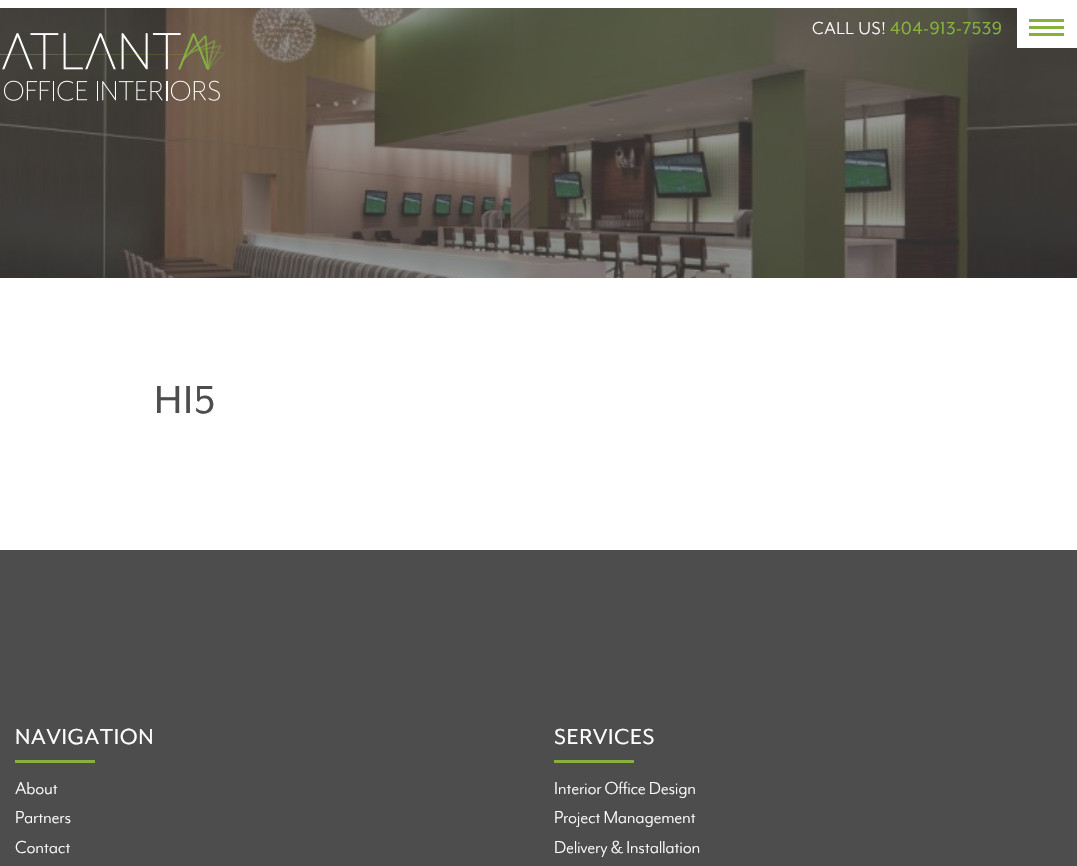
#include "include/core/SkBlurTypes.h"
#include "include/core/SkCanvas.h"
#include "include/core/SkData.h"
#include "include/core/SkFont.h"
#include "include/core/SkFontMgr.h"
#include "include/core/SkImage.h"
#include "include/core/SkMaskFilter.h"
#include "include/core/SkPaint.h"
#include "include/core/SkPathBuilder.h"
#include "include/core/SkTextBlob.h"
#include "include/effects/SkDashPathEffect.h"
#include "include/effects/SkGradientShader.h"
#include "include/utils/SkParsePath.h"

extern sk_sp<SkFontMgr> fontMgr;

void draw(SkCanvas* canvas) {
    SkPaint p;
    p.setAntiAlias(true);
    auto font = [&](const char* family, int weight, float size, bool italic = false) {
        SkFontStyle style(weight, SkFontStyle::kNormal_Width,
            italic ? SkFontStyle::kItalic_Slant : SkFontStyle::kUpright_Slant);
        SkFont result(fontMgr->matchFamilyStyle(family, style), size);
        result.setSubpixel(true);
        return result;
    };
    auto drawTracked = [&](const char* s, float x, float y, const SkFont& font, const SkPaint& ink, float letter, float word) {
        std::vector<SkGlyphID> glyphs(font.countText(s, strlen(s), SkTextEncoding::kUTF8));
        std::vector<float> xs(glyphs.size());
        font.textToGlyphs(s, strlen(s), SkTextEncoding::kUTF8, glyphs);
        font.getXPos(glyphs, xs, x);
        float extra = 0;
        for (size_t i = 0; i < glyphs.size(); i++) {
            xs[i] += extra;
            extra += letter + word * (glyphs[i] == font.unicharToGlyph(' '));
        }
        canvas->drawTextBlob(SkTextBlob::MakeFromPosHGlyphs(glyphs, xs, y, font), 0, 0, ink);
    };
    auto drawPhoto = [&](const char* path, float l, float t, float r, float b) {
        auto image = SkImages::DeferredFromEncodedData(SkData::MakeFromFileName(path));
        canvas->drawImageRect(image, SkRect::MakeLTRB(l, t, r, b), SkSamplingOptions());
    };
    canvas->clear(0xFFFFFFFF);
    drawPhoto("media/1.png", 0, 8, 1077, 278);
    auto font1 = font("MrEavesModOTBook", 400, 20);
    p.setColor(0xFFFFFFFF);
    drawTracked("CALL US!", 812, 34, font1, p, 0.5f, 0);
    auto font2 = font("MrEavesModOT", 400, 20);
    p.setColor(0xFF86B13F);
    drawTracked("404-913-7539", 890, 34, font2, p, 0.5f, 0);
    {
        const struct { float l, t, r, b; SkColor color; } items[] = {
            {1017, 8, 1077, 48, 0xFFFFFFFF},
            {1029, 19, 1064, 22, 0xFF86B13F},
            {1029, 26, 1064, 29, 0xFF86B13F},
            {1029, 33, 1064, 36, 0xFF86B13F},
        };
        for (auto [l, t, r, b, color] : items) {
            p.setColor(color);
            canvas->drawRect(SkRect::MakeLTRB(l, t, r, b), p);
        }
    }
    drawPhoto("media/2.png", 0, 33, 225, 101);
    auto font3 = font("MrEavesModOT", 400, 45);
    p.setColor(0xFF4D4D4D);
    drawTracked("HI5", 154, 413, font3, p, 1, 0);
    canvas->drawRect(SkRect::MakeLTRB(0, 550, 1077, 866), p);
    auto font4 = font("MrEavesModOT", 400, 25);
    p.setColor(0xFFFFFFFF);
    drawTracked("NAVIGATION", 15, 744, font4, p, 0.6f, 0);
    p.setColor(0xFF86B13F);
    canvas->drawRect(SkRect::MakeLTRB(15, 760, 95, 763), p);
    p.setColor(0xFFFFFFFF);
    {
        const struct { const char* s; float x, y; } items[] = {
            {"About", 15, 794},
            {"Partners", 15, 823},
            {"Contact", 15, 853},
        };
        for (auto [s, x, y] : items) {
            drawTracked(s, x, y, font1, p, -0.25f, 0);
        }
    }
    drawTracked("SERVICES", 554, 744, font4, p, 0.6f, 0);
    p.setColor(0xFF86B13F);
    canvas->drawRect(SkRect::MakeLTRB(554, 760, 634, 763), p);
    p.setColor(0xFFFFFFFF);
    {
        const struct { const char* s; float x, y; } items[] = {
            {"Interior Office Design", 554, 794},
            {"Project Management", 554, 823},
            {"Delivery & Installation", 554, 853},
        };
        for (auto [s, x, y] : items) {
            drawTracked(s, x, y, font1, p, -0.25f, 0);
        }
    }
}
